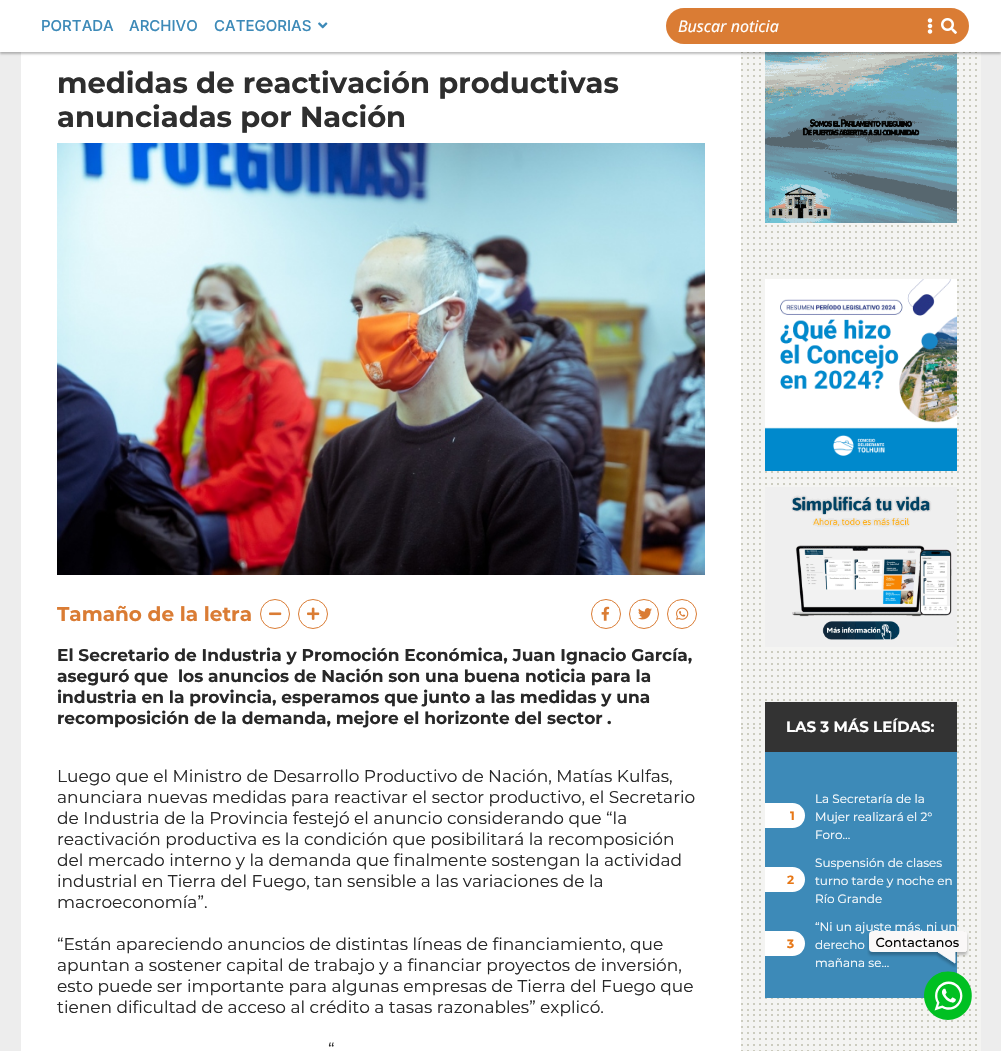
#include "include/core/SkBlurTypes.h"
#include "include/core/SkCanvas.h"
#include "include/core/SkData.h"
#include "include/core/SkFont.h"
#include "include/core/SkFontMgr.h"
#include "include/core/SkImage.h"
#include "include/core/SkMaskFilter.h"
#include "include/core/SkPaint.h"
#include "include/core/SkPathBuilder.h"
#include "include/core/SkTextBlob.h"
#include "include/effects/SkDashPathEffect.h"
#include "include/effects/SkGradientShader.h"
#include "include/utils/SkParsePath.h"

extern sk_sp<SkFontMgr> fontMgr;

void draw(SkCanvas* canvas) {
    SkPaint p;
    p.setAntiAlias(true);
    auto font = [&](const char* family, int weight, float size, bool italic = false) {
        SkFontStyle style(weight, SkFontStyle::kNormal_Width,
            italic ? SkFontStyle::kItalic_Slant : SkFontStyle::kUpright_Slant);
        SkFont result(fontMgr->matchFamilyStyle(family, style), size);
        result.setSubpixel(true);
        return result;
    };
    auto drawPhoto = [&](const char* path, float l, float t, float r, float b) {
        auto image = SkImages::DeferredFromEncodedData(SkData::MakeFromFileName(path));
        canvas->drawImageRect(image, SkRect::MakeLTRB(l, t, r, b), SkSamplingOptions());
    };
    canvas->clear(0xFFEDEDED);
    p.setColor(0xFFFFFFFF);
    canvas->drawRect(SkRect::MakeLTRB(21, 52, 741, 1051), p);
    drawPhoto("media/10.png", 741, 52, 981, 727);
    drawPhoto("media/11.png", 765, 52, 957, 223);
    p.setColor(0x40000000);
    p.setMaskFilter(SkMaskFilter::MakeBlur(kNormal_SkBlurStyle, 1));
    canvas->drawRect(SkRect::MakeLTRB(0, 2, 1001, 54), p);
    p.setMaskFilter(nullptr);
    p.setColor(0xFFFFFFFF);
    canvas->drawRect(SkRect::MakeLTRB(0, 0, 1001, 52), p);
    auto font1 = font("Inter", 500, 15);
    p.setColor(0xFF3D8AB8);
    {
        const struct { const char* s; float x, y; } items[] = {
            {"PORTADA", 41, 31},
            {"ARCHIVO", 129, 31},
            {"CATEGORIAS", 214, 31},
        };
        for (auto [s, x, y] : items) {
            canvas->drawString(s, x, y, font1, p);
        }
    }
    drawPhoto("media/1.png", 318, 22, 328, 29);
    p.setColor(0xFFDA7C34);
    canvas->drawPath(SkPathBuilder().moveTo(915, 8).lineTo(951, 8).cubicTo(961, 8, 969, 16, 969, 26).cubicTo(969, 36, 961, 44, 951, 44).lineTo(915, 44).close().detach(), p);
    canvas->drawPath(SkPathBuilder().moveTo(684, 8).lineTo(916, 8).lineTo(916, 44).lineTo(684, 44).cubicTo(674, 44, 666, 36, 666, 26).cubicTo(666, 16, 674, 8, 684, 8).close().detach(), p);
    auto font2 = font("Noto Sans", 400, 16, true);
    p.setColor(0xFFFFFFFF);
    canvas->drawString("Buscar noticia", 678, 32, font2, p);
    drawPhoto("media/2.png", 927, 18, 933, 34);
    drawPhoto("media/3.png", 941, 18, 957, 34);
    auto font3 = font("Montserrat", 700, 29);
    p.setColor(0xFF2E2E2E);
    canvas->drawString("medidas de reactivación productivas", 57, 93, font3, p);
    canvas->drawString("anunciadas por Nación", 57, 127, font3, p);
    drawPhoto("media/4.png", 57, 143, 705, 575);
    auto font4 = font("Montserrat", 700, 20);
    p.setColor(0xFFDA7C34);
    canvas->drawString("Tamaño de la letra", 57, 621, font4, p);
    p.setStyle(SkPaint::kStroke_Style);
    p.setStrokeWidth(1);
    canvas->drawCircle(275, 614, 14.5f, p);
    drawPhoto("media/5.png", 269, 612, 282, 616);
    canvas->drawCircle(313, 614, 14.5f, p);
    drawPhoto("media/6.png", 307, 607, 320, 620);
    canvas->drawCircle(606, 614, 14.5f, p);
    drawPhoto("media/7.png", 601, 606, 610, 621);
    canvas->drawCircle(644, 614, 14.5f, p);
    drawPhoto("media/8.png", 638, 608, 652, 620);
    canvas->drawCircle(682, 614, 14.5f, p);
    drawPhoto("media/9.png", 676, 607, 689, 620);
    auto font5 = font("Montserrat", 700, 17);
    p.setStyle(SkPaint::kFill_Style);
    p.setColor(0xFF282828);
    {
        const struct { const char* s; float x, y; } items[] = {
            {"El Secretario de Industria y Promoción Económica, Juan Ignacio García,", 57, 661},
            {"aseguró que", 57, 682},
            {"los anuncios de Nación son una buena noticia para la", 178, 682},
            {"industria en la provincia, esperamos que junto a las medidas y una", 57, 703},
            {"recomposición de la demanda, mejore el horizonte del sector", 57, 724},
            {".", 607, 724},
        };
        for (auto [s, x, y] : items) {
            canvas->drawString(s, x, y, font5, p);
        }
    }
    auto font6 = font("Montserrat", 400, 17);
    {
        const struct { const char* s; float x, y; } items[] = {
            {"Luego que el Ministro de Desarrollo Productivo de Nación, Matías Kulfas,", 57, 782},
            {"anunciara nuevas medidas para reactivar el sector productivo, el Secretario", 57, 803},
            {"de Industria de la Provincia festejó el anuncio considerando que “la", 57, 824},
            {"reactivación productiva es la condición que posibilitará la recomposición", 57, 845},
            {"del mercado interno y la demanda que finalmente sostengan la actividad", 57, 866},
            {"industrial en Tierra del Fuego, tan sensible a las variaciones de la", 57, 887},
            {"macroeconomía”.", 57, 908},
            {"“Están apareciendo anuncios de distintas líneas de financiamiento, que", 57, 950},
            {"apuntan a sostener capital de trabajo y a financiar proyectos de inversión,", 57, 971},
            {"esto puede ser importante para algunas empresas de Tierra del Fuego que", 57, 992},
            {"tienen dificultad de acceso al crédito a tasas razonables” explicó.", 57, 1013},
            {"“", 328, 1055},
        };
        for (auto [s, x, y] : items) {
            canvas->drawString(s, x, y, font6, p);
        }
    }
    drawPhoto("media/12.png", 765, 279, 957, 471);
    drawPhoto("media/13.png", 765, 487, 957, 647);
    drawPhoto("media/14.png", 741, 727, 981, 1014);
    p.setColor(0xFF3D8AB8);
    canvas->drawRect(SkRect::MakeLTRB(765, 752, 957, 998), p);
    p.setColor(0xFF333333);
    canvas->drawRect(SkRect::MakeLTRB(765, 702, 957, 752), p);
    auto font7 = font("Montserrat", 700, 15);
    p.setColor(0xFFFFFFFF);
    canvas->drawString("LAS 3 MÁS LEÍDAS:", 786, 732, font7, p);
    auto font8 = font("Montserrat", 400, 12);
    canvas->drawString("La Secretaría de la", 815, 803, font8, p);
    canvas->drawPath(SkPathBuilder().moveTo(765, 803).lineTo(792.5f, 803).cubicTo(799.5f, 803, 805, 808.5f, 805, 815.5f).cubicTo(805, 822.5f, 799.5f, 828, 792.5f, 828).lineTo(765, 828).close().detach(), p);
    auto font9 = font("Montserrat", 700, 12);
    p.setColor(0xFFE77716);
    canvas->drawString("1", 790, 820, font9, p);
    p.setColor(0xFFFFFFFF);
    {
        const struct { const char* s; float x, y; } items[] = {
            {"Mujer realizará el 2°", 815, 821},
            {"Foro…", 815, 839},
            {"Suspensión de clases", 815, 867},
        };
        for (auto [s, x, y] : items) {
            canvas->drawString(s, x, y, font8, p);
        }
    }
    canvas->drawPath(SkPathBuilder().moveTo(765, 867).lineTo(792.5f, 867).cubicTo(799.5f, 867, 805, 872.5f, 805, 879.5f).cubicTo(805, 886.5f, 799.5f, 892, 792.5f, 892).lineTo(765, 892).close().detach(), p);
    p.setColor(0xFFE77716);
    canvas->drawString("2", 787, 884, font9, p);
    p.setColor(0xFFFFFFFF);
    {
        const struct { const char* s; float x, y; } items[] = {
            {"turno tarde y noche en", 815, 885},
            {"Río Grande", 815, 903},
            {"“Ni un ajuste más, ni un", 815, 931},
        };
        for (auto [s, x, y] : items) {
            canvas->drawString(s, x, y, font8, p);
        }
    }
    canvas->drawPath(SkPathBuilder().moveTo(765, 931).lineTo(792.5f, 931).cubicTo(799.5f, 931, 805, 936.5f, 805, 943.5f).cubicTo(805, 950.5f, 799.5f, 956, 792.5f, 956).lineTo(765, 956).close().detach(), p);
    p.setColor(0xFFE77716);
    canvas->drawString("3", 787, 948, font9, p);
    p.setColor(0xFFFFFFFF);
    canvas->drawString("derecho", 815, 949, font8, p);
    canvas->drawString("mañana se…", 815, 967, font8, p);
    drawPhoto("media/15.png", 741, 1014, 981, 1051);
    drawPhoto("media/16.png", 867, 931, 969, 968);
    drawPhoto("media/17.png", 924, 971, 972, 1020);
}
